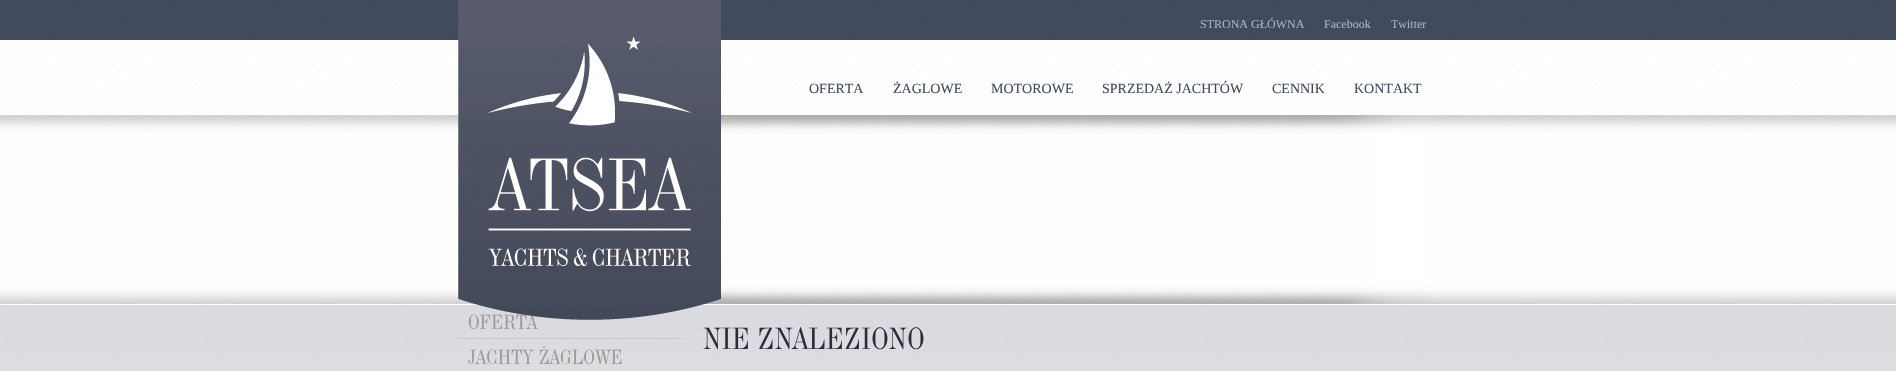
#include "include/core/SkBlurTypes.h"
#include "include/core/SkCanvas.h"
#include "include/core/SkData.h"
#include "include/core/SkFont.h"
#include "include/core/SkFontMgr.h"
#include "include/core/SkImage.h"
#include "include/core/SkMaskFilter.h"
#include "include/core/SkPaint.h"
#include "include/core/SkPathBuilder.h"
#include "include/core/SkTextBlob.h"
#include "include/effects/SkDashPathEffect.h"
#include "include/effects/SkGradientShader.h"
#include "include/utils/SkParsePath.h"

extern sk_sp<SkFontMgr> fontMgr;

void draw(SkCanvas* canvas) {
    SkPaint p;
    p.setAntiAlias(true);
    auto font = [&](const char* family, int weight, float size, bool italic = false) {
        SkFontStyle style(weight, SkFontStyle::kNormal_Width,
            italic ? SkFontStyle::kItalic_Slant : SkFontStyle::kUpright_Slant);
        SkFont result(fontMgr->matchFamilyStyle(family, style), size);
        result.setSubpixel(true);
        return result;
    };
    auto drawPhoto = [&](const char* path, float l, float t, float r, float b) {
        auto image = SkImages::DeferredFromEncodedData(SkData::MakeFromFileName(path));
        canvas->drawImageRect(image, SkRect::MakeLTRB(l, t, r, b), SkSamplingOptions());
    };
    canvas->clear(0xFFFFFFFF);
    drawPhoto("media/1.png", 0, 0, 1896, 371);
    drawPhoto("media/3.png", 462, 115, 1429, 304);
    auto font1 = font("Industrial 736", 400, 20);
    p.setColor(0xFF999999);
    canvas->drawString("OFERTA", 468, 329, font1, p);
    drawPhoto("media/2.png", 458, 0, 721, 320);
    auto font2 = font("Liberation Serif", 400, 12);
    p.setColor(0xFFABB3C2);
    {
        const struct { const char* s; float x, y; } items[] = {
            {"STRONA GŁÓWNA", 1200, 28},
            {"Facebook", 1324, 28},
            {"Twitter", 1391, 28},
        };
        for (auto [s, x, y] : items) {
            canvas->drawString(s, x, y, font2, p);
        }
    }
    auto font3 = font("Liberation Serif", 400, 14);
    p.setColor(0xFF414B5D);
    {
        const struct { const char* s; float x, y; } items[] = {
            {"OFERTA", 809, 93},
            {"ŻAGLOWE", 893, 93},
            {"MOTOROWE", 991, 93},
            {"SPRZEDAŻ JACHTÓW", 1102, 93},
            {"CENNIK", 1272, 93},
            {"KONTAKT", 1354, 93},
        };
        for (auto [s, x, y] : items) {
            canvas->drawString(s, x, y, font3, p);
        }
    }
    p.setColor(0xFFCACACA);
    canvas->drawRect(SkRect::MakeLTRB(458, 338, 683, 339), p);
    p.setColor(0xFF999999);
    canvas->drawString("JACHTY ŻAGLOWE", 468, 364, font1, p);
    auto font4 = font("Industrial 736", 400, 30);
    p.setColor(0xFF2D2C3A);
    canvas->drawString("NIE ZNALEZIONO", 703, 349, font4, p);
}
